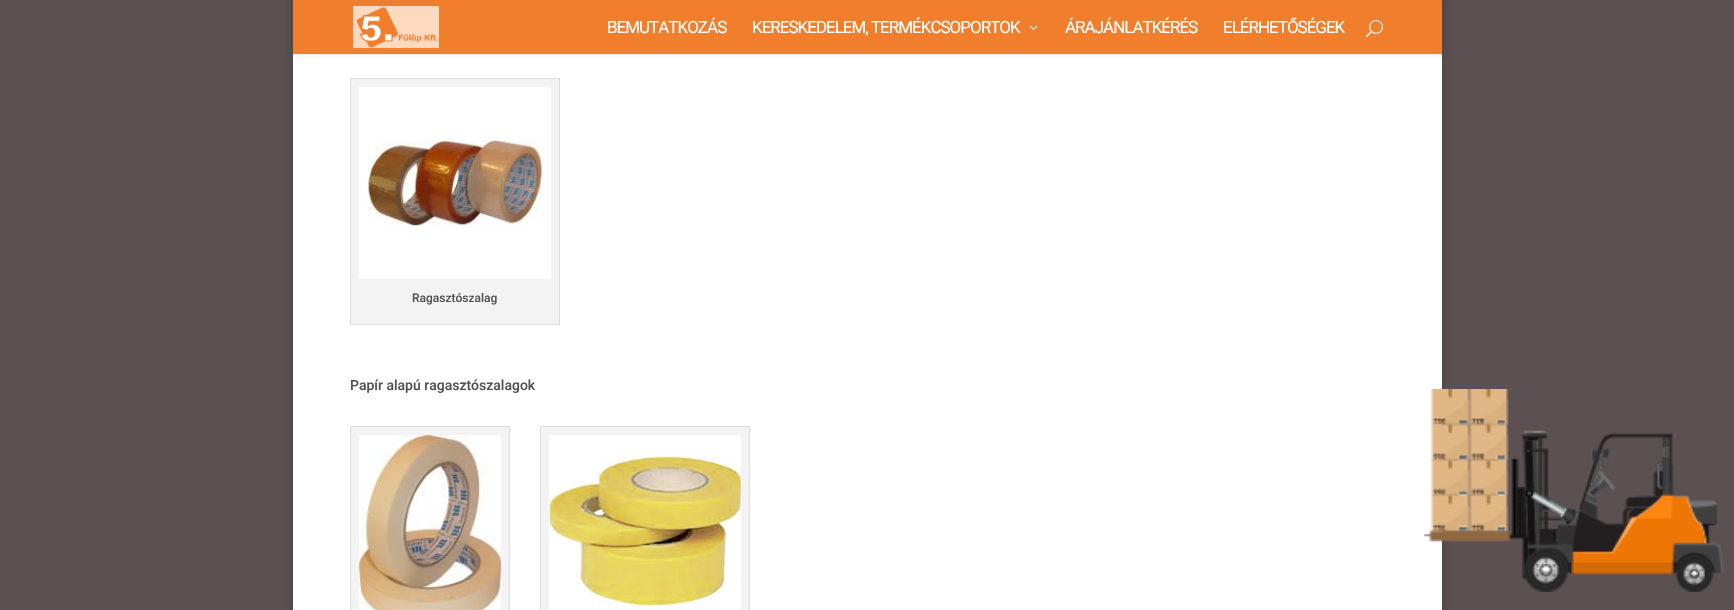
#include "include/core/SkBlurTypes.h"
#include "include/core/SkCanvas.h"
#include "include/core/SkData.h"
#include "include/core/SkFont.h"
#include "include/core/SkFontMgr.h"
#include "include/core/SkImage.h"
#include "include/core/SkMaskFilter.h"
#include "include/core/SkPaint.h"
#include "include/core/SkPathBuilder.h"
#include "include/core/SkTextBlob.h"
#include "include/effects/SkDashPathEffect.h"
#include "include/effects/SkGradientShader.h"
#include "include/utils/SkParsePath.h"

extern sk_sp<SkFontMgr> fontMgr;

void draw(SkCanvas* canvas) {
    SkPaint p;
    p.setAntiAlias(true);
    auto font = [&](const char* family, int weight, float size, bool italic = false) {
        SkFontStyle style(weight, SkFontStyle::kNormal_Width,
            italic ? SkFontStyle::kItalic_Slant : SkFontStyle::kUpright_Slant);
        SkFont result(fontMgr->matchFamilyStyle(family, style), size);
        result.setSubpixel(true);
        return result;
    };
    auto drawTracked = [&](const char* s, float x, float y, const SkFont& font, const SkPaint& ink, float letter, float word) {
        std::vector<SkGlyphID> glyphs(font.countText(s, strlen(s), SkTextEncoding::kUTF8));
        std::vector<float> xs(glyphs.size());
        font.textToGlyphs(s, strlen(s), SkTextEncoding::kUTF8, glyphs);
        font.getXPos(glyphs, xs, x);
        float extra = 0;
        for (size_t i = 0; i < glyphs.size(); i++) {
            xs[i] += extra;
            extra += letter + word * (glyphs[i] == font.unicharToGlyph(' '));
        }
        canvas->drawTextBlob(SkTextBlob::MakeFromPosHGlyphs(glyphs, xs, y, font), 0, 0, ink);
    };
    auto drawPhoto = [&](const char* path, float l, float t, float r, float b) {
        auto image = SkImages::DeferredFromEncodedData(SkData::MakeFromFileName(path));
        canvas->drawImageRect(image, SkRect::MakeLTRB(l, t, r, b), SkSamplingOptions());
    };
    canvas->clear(0xFF5B5152);
    p.setColor(0x33000000);
    p.setMaskFilter(SkMaskFilter::MakeBlur(kNormal_SkBlurStyle, 5));
    canvas->drawRect(SkRect::MakeLTRB(293, -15, 1442, 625), p);
    p.setMaskFilter(nullptr);
    p.setColor(0xFFFFFFFF);
    canvas->drawRect(SkRect::MakeLTRB(293, 54, 1442, 610), p);
    p.setColor(0x1A000000);
    p.setMaskFilter(SkMaskFilter::MakeBlur(kNormal_SkBlurStyle, 3.5f));
    canvas->drawRect(SkRect::MakeLTRB(293, 0, 1442, 54), p);
    p.setMaskFilter(nullptr);
    p.setColor(0xFFF17E2D);
    canvas->drawRect(SkRect::MakeLTRB(293, 0, 1442, 54), p);
    drawPhoto("media/1.png", 353, 6, 439, 48);
    auto font1 = font("Roboto", 400, 17);
    p.setColor(0xFFFFFFFF);
    drawTracked("BEMUTATKOZÁS", 607, 33, font1, p, -1, 0);
    drawTracked("KERESKEDELEM, TERMÉKCSOPORTOK", 752, 33, font1, p, -1, 0);
    drawPhoto("media/2.png", 1029, 25, 1038, 30);
    drawTracked("ÁRAJÁNLATKÉRÉS", 1065, 33, font1, p, -1, 0);
    drawTracked("ELÉRHETŐSÉGEK", 1223, 33, font1, p, -1, 0);
    drawPhoto("media/3.png", 1366, 20, 1383, 38);
    p.setColor(0xFFF3F3F3);
    canvas->drawRect(SkRect::MakeLTRB(350.5f, 78.5f, 559.5f, 324.5f), p);
    p.setStyle(SkPaint::kStroke_Style);
    p.setStrokeWidth(1);
    p.setColor(0xFFDDDDDD);
    canvas->drawRect(SkRect::MakeLTRB(350.5f, 78.5f, 559.5f, 324.5f), p);
    drawPhoto("media/4.png", 359, 87, 551, 279);
    auto font2 = font("Roboto", 500, 12);
    p.setStyle(SkPaint::kFill_Style);
    p.setColor(0xFF515151);
    canvas->drawString("Ragasztószalag", 412, 302, font2, p);
    auto font3 = font("Roboto", 500, 14);
    canvas->drawString("Papír alapú ragasztószalagok", 350, 390, font3, p);
    p.setColor(0xFFF3F3F3);
    canvas->drawRect(SkRect::MakeLTRB(350.5f, 426.5f, 509.5f, 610.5f), p);
    p.setStyle(SkPaint::kStroke_Style);
    p.setColor(0xFFDDDDDD);
    canvas->drawRect(SkRect::MakeLTRB(350.5f, 426.5f, 509.5f, 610.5f), p);
    drawPhoto("media/5.png", 359, 435, 501, 610);
    p.setStyle(SkPaint::kFill_Style);
    p.setColor(0xFFF3F3F3);
    canvas->drawRect(SkRect::MakeLTRB(540.5f, 426.5f, 749.5f, 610.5f), p);
    p.setStyle(SkPaint::kStroke_Style);
    p.setColor(0xFFDDDDDD);
    canvas->drawRect(SkRect::MakeLTRB(540.5f, 426.5f, 749.5f, 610.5f), p);
    drawPhoto("media/6.png", 549, 435, 741, 610);
    drawPhoto("media/7.png", 1424, 389, 1724, 592);
}
